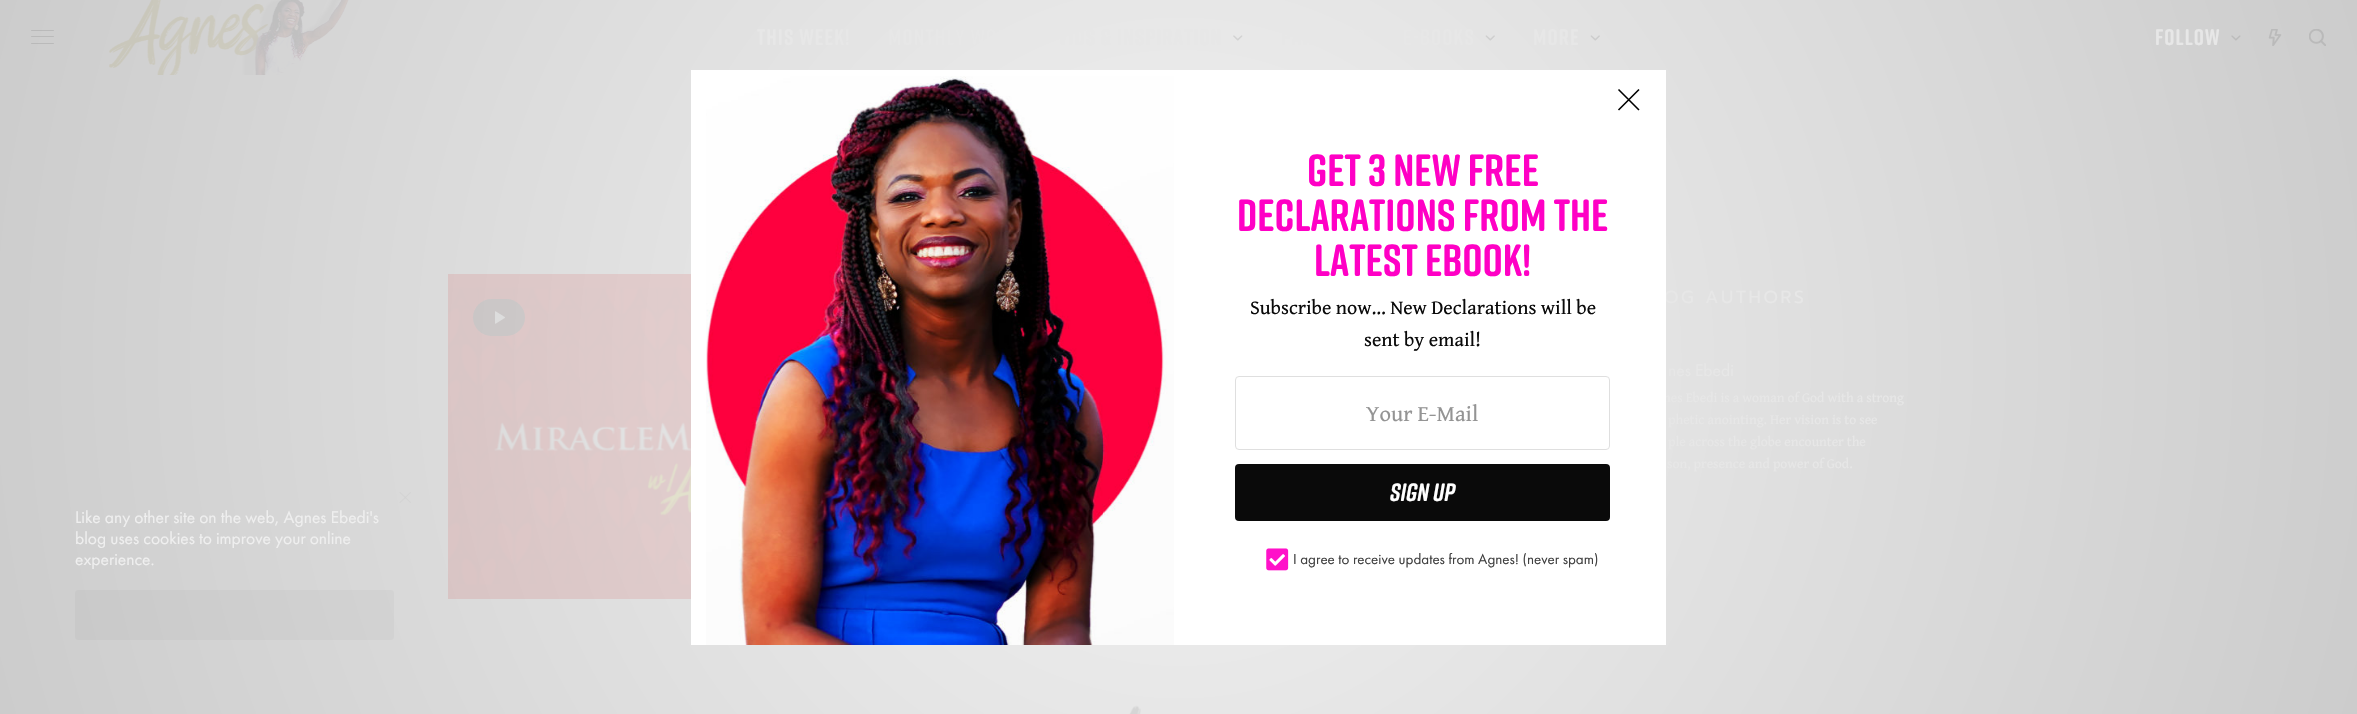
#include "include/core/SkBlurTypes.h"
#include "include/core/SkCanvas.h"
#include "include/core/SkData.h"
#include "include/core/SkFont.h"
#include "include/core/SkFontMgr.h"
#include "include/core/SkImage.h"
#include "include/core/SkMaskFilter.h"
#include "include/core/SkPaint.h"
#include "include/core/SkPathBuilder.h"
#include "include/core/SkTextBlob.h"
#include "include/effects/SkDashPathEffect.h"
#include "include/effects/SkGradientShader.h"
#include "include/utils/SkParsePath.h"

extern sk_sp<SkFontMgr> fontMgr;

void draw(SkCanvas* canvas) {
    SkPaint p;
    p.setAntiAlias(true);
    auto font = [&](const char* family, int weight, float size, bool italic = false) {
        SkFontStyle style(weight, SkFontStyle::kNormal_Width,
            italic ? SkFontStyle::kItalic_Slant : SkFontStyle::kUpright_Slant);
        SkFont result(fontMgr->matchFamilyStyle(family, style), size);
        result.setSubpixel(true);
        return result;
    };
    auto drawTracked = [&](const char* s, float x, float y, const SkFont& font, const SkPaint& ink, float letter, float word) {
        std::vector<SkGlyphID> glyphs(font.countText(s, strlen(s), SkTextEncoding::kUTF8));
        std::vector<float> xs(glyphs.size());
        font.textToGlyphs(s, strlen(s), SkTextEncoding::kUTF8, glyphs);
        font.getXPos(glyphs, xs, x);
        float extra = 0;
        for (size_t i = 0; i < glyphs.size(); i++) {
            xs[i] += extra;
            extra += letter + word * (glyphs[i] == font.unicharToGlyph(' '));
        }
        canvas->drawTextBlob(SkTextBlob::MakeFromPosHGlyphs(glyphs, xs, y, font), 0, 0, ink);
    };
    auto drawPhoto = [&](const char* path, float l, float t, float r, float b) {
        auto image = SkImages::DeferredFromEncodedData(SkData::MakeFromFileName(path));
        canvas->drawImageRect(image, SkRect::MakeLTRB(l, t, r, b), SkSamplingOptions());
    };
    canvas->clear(0xFFFFFFFF);
    p.setColor(0xFFE7E7E7);
    canvas->drawRoundRect(SkRect::MakeLTRB(31, 30, 54, 31), 0.5f, 0.5f, p);
    canvas->drawRoundRect(SkRect::MakeLTRB(31, 36, 54, 37), 0.5f, 0.5f, p);
    canvas->drawRoundRect(SkRect::MakeLTRB(31, 43, 54, 44), 0.5f, 0.5f, p);
    drawPhoto("media/1.png", 109, 0, 349, 75);
    drawPhoto("media/2.png", 1233, 35, 1243, 41);
    drawPhoto("media/3.png", 1485, 35, 1495, 41);
    drawPhoto("media/3.png", 1590, 35, 1600, 41);
    drawPhoto("media/4.png", 2231, 35, 2241, 41);
    drawPhoto("media/5.png", 2268, 29, 2282, 46);
    drawPhoto("media/6.png", 2309, 29, 2326, 46);
    drawPhoto("media/7.png", 448, 274, 691, 599);
    p.setColor(0xCCE6E6E6);
    canvas->drawRoundRect(SkRect::MakeLTRB(473, 299, 525, 336), 18.5f, 18.5f, p);
    drawPhoto("media/8.png", 495, 311, 505, 324);
    p.setColor(0xFFF6F6F6);
    canvas->drawPath(SkPathBuilder().moveTo(400, 492).lineTo(411, 502.5f).lineTo(410.5f, 503).lineTo(399.5f, 492.5f).close().detach(), p);
    canvas->drawPath(SkPathBuilder().moveTo(399.5f, 502.5f).lineTo(410.5f, 492).lineTo(411, 492.5f).lineTo(400, 503).close().detach(), p);
    p.setColor(0xFFF8F8F8);
    canvas->drawRoundRect(SkRect::MakeLTRB(75, 590, 394, 640), 4, 4, p);
    drawPhoto("media/9.png", 1129, 705, 1141, 714);
    {
        const SkColor colors[] = {0x0D000000, 0x33000000};
        const float stops[] = {0, 1};
        p.setShader(SkGradientShader::MakeRadial({1179, 358}, 1232, colors, stops, 2, SkTileMode::kClamp));
        p.setAlpha(255);
    }
    canvas->drawRect(SkRect::MakeLTRB(0, 0, 2357, 714), p);
    auto font1 = font("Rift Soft", 700, 22.5f);
    p.setShader(nullptr);
    p.setColor(0xFFE7E7E7);
    {
        const struct { const char* s; float x, y; } items[] = {
            {"THIS WEEK!", 757, 45},
            {"MONTHLY WORD", 888, 45},
            {"VIDS & INSPIRATION", 1058, 45},
            {"PARTNERS", 1281, 45},
            {"E-BOOKS", 1403, 45},
            {"MORE", 1533, 45},
            {"FOLLOW", 2155, 45},
        };
        for (auto [s, x, y] : items) {
            drawTracked(s, x, y, font1, p, 1.1f, 0);
        }
    }
    auto font2 = font("Prompt", 400, 17.5f);
    drawTracked("OG AUTHORS", 1664, 303, font2, p, 2.6f, 0);
    auto font3 = font("Futura PT", 400, 17.5f);
    canvas->drawString("nes Ebedi", 1668, 376, font3, p);
    auto font4 = font("Gentium Book Plus", 400, 13.75f);
    {
        const struct { const char* s; float x, y; } items[] = {
            {"nes Ebedi is a woman of God with a strong", 1663, 402},
            {"phetic anointing. Her vision is to see", 1668, 424},
            {"ple across the globe encounter the", 1668, 446},
            {"son, presence and power of God.", 1667, 468},
        };
        for (auto [s, x, y] : items) {
            canvas->drawString(s, x, y, font4, p);
        }
    }
    p.setColor(0xFFEFEFEF);
    {
        const struct { const char* s; float x, y; } items[] = {
            {"Like any other site on the web, Agnes Ebedi's", 75, 523},
            {"blog uses cookies to improve your online", 75, 544},
            {"experience.", 75, 565},
        };
        for (auto [s, x, y] : items) {
            canvas->drawString(s, x, y, font3, p);
        }
    }
    p.setColor(0xFFFFFFFF);
    canvas->drawRect(SkRect::MakeLTRB(691, 70, 1666, 645), p);
    drawPhoto("media/10.png", 706, 76, 1174, 645);
    p.setStyle(SkPaint::kStroke_Style);
    p.setStrokeWidth(1.6f);
    p.setColor(0xFF000000);
    canvas->drawPath(SkPathBuilder().moveTo(1618.5f, 89.5f).lineTo(1639, 110).moveTo(1618.5f, 110).lineTo(1639, 89.5f).detach(), p);
    auto font5 = font("Rift Soft", 700, 45);
    p.setStyle(SkPaint::kFill_Style);
    p.setColor(0xFFFF00C5);
    {
        const struct { const char* s; float x, y; } items[] = {
            {"Get 3 New Free", 1307, 186},
            {"Declarations from the", 1237, 231},
            {"latest eBook!", 1314, 276},
        };
        for (auto [s, x, y] : items) {
            canvas->drawString(s, x, y, font5, p);
        }
    }
    auto font6 = font("Gentium Book Plus", 400, 20);
    p.setColor(0xFF0A0A0A);
    canvas->drawString("Subscribe now… New Declarations will be", 1250, 314, font6, p);
    canvas->drawString("sent by email!", 1364, 346, font6, p);
    p.setStyle(SkPaint::kStroke_Style);
    p.setStrokeWidth(1);
    p.setColor(0xFFDFDFDF);
    canvas->drawRoundRect(SkRect::MakeLTRB(1235.5f, 376.5f, 1609.5f, 449.5f), 3.5f, 3.5f, p);
    auto font7 = font("Gentium Book Plus", 400, 22.5f);
    p.setStyle(SkPaint::kFill_Style);
    p.setColor(0xFF949494);
    canvas->drawString("Your E-Mail", 1366, 421, font7, p);
    p.setColor(0xFF0A0A0A);
    canvas->drawRoundRect(SkRect::MakeLTRB(1235, 464, 1610, 521), 4, 4, p);
    auto font8 = font("Rift Soft", 700, 25, true);
    p.setColor(0xFFFFFFFF);
    canvas->drawString("SIGN UP", 1390, 501, font8, p);
    drawPhoto("media/11.png", 1266, 548, 1289, 571);
    auto font9 = font("Futura PT", 400, 15);
    p.setColor(0xFF404040);
    canvas->drawString("I agree to receive updates from Agnes! (never spam)", 1293, 564, font9, p);
}
